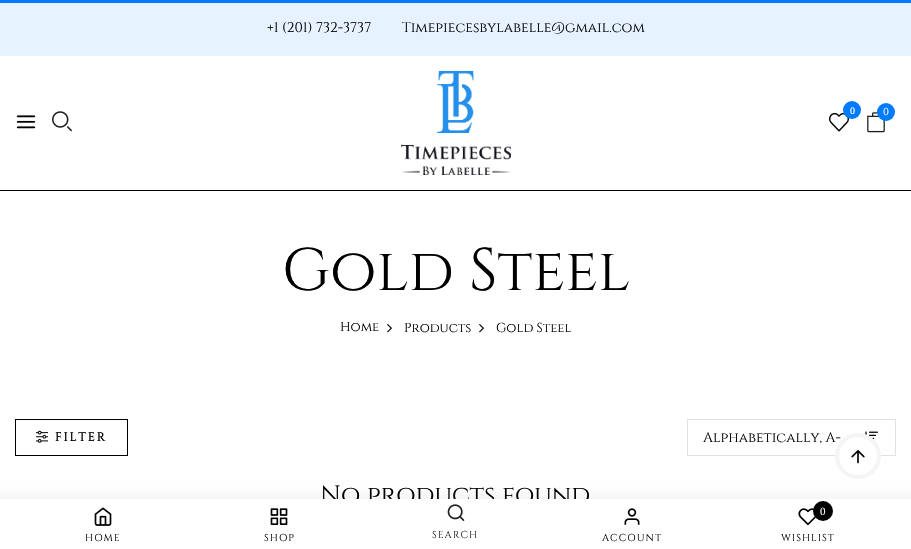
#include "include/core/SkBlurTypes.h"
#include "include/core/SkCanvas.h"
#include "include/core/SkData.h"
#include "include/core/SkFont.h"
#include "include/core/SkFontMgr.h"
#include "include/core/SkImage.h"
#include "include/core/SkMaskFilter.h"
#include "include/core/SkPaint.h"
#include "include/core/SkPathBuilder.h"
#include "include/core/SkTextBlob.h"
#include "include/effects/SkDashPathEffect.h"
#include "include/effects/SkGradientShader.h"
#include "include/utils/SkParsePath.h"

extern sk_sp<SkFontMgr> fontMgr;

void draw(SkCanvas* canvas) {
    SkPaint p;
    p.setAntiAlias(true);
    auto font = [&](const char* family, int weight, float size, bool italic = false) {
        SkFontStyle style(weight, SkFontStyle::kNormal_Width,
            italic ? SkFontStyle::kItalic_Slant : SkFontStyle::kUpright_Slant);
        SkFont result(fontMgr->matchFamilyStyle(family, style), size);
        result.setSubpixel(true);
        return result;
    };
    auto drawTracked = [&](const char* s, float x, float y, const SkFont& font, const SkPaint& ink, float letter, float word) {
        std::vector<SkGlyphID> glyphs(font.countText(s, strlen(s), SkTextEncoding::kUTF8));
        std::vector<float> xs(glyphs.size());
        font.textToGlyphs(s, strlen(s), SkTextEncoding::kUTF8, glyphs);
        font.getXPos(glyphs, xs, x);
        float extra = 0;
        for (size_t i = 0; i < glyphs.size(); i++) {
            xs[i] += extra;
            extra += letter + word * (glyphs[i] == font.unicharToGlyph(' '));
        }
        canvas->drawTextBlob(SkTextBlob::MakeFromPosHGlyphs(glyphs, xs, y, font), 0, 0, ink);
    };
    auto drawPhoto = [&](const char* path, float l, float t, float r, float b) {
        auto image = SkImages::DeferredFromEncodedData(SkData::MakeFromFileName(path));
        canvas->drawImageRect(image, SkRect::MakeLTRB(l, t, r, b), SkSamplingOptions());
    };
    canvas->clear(0xFFFFFFFF);
    p.setColor(0xFF007BFF);
    canvas->drawRect(SkRect::MakeLTRB(0, 0, 911, 3), p);
    p.setColor(0xFFE6F2FF);
    canvas->drawRect(SkRect::MakeLTRB(0, 3, 911, 56), p);
    auto font1 = font("Cinzel", 400, 14);
    p.setColor(0xFF000000);
    canvas->drawString("+1 (201) 732-3737", 267, 32, font1, p);
    p.setColor(0xFFEBF5FF);
    canvas->drawRect(SkRect::MakeLTRB(386, 18, 387, 38), p);
    p.setColor(0xFF000000);
    canvas->drawString("Timepiecesbylabelle@gmail.com", 402, 32, font1, p);
    canvas->drawRect(SkRect::MakeLTRB(0, 190, 911, 191), p);
    drawPhoto("media/1.png", 16, 115, 36, 129);
    drawPhoto("media/2.png", 52, 111, 72, 132);
    drawPhoto("media/3.png", 401, 71, 511, 175);
    drawPhoto("media/4.png", 829, 112, 849, 132);
    p.setColor(0xFF007BFF);
    canvas->drawCircle(852, 110, 9, p);
    auto font2 = font("Liberation Serif", 400, 10);
    p.setColor(0xFFFFFFFF);
    canvas->drawString("0", 850, 114, font2, p);
    drawPhoto("media/5.png", 867, 112, 885, 133);
    p.setColor(0xFF007BFF);
    canvas->drawCircle(886, 112, 9, p);
    auto font3 = font("Cinzel", 400, 10);
    p.setColor(0xFFFFFFFF);
    canvas->drawString("0", 883, 115, font3, p);
    p.setColor(0x0D000000);
    p.setMaskFilter(SkMaskFilter::MakeBlur(kNormal_SkBlurStyle, 5));
    canvas->drawRect(SkRect::MakeLTRB(-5, 495, 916, 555), p);
    p.setMaskFilter(nullptr);
    auto font4 = font("Cinzel", 400, 25);
    p.setColor(0xFF000000);
    canvas->drawString("No products found", 320, 503, font4, p);
    p.setColor(0xFFFFFFFF);
    canvas->drawRect(SkRect::MakeLTRB(0, 499, 911, 549), p);
    drawPhoto("media/6.png", 94, 507, 112, 526);
    p.setColor(0xFF000000);
    drawTracked("HOME", 85, 541, font3, p, 1, 0);
    drawPhoto("media/7.png", 270, 508, 288, 525);
    drawTracked("SHOP", 264, 541, font3, p, 1, 0);
    drawPhoto("media/8.png", 447, 504, 465, 521);
    p.setColor(0xFF1F2021);
    drawTracked("SEARCH", 432, 538, font3, p, 1, 0);
    drawPhoto("media/9.png", 624, 508, 640, 525);
    p.setColor(0xFF000000);
    drawTracked("ACCOUNT", 602, 541, font3, p, 1, 0);
    drawPhoto("media/10.png", 798, 508, 816, 526);
    canvas->drawCircle(823, 511, 10, p);
    auto font5 = font("Liberation Serif", 400, 11);
    p.setColor(0xFFFFFFFF);
    drawTracked("0", 820, 515, font5, p, 1, 0);
    p.setColor(0xFF000000);
    drawTracked("WISHLIST", 781, 541, font3, p, 1, 0);
    auto font6 = font("Cinzel", 400, 60);
    canvas->drawString("Gold Steel", 282, 290, font6, p);
    auto font7 = font("Cinzel", 400, 13);
    canvas->drawString("Home", 340, 331, font7, p);
    drawPhoto("media/11.png", 387, 324, 392, 333);
    canvas->drawString("Products", 404, 332, font7, p);
    drawPhoto("media/11.png", 479, 324, 484, 333);
    canvas->drawString("Gold Steel", 496, 332, font7, p);
    p.setStyle(SkPaint::kStroke_Style);
    p.setStrokeWidth(1);
    canvas->drawRect(SkRect::MakeLTRB(15.5f, 419.5f, 127.5f, 455.5f), p);
    drawPhoto("media/12.png", 36, 430, 48, 443);
    auto font8 = font("Cinzel", 700, 12);
    p.setStyle(SkPaint::kFill_Style);
    drawTracked("FILTER", 55, 441, font8, p, 2, 0);
    p.setStyle(SkPaint::kStroke_Style);
    p.setColor(0xFFE1E1E1);
    canvas->drawRect(SkRect::MakeLTRB(687.5f, 419.5f, 895.5f, 455.5f), p);
    p.setStyle(SkPaint::kFill_Style);
    p.setColor(0xFF000000);
    canvas->drawString("Alphabetically, A-", 703, 442, font1, p);
    drawPhoto("media/13.png", 865, 431, 878, 440);
    p.setColor(0xFFFFFFFF);
    canvas->drawCircle(858, 456, 21, p);
    p.setStyle(SkPaint::kStroke_Style);
    p.setStrokeWidth(4);
    p.setColor(0xFFF5F5F5);
    canvas->drawCircle(858, 456, 21, p);
    drawPhoto("media/14.png", 851, 450, 865, 464);
}
